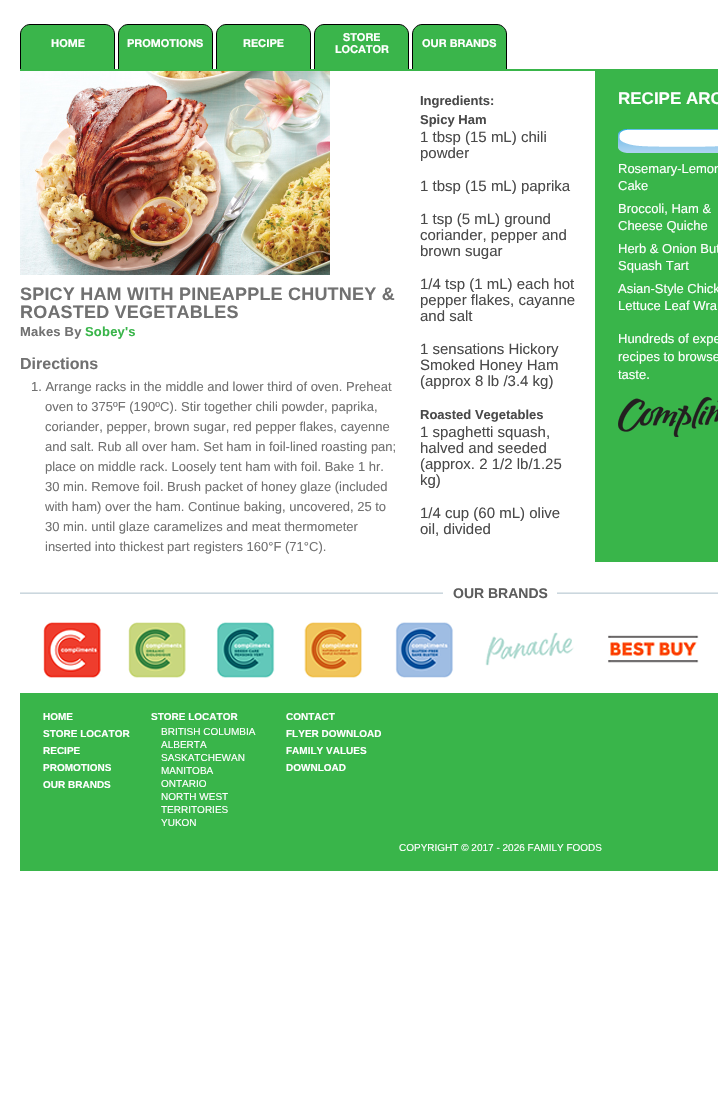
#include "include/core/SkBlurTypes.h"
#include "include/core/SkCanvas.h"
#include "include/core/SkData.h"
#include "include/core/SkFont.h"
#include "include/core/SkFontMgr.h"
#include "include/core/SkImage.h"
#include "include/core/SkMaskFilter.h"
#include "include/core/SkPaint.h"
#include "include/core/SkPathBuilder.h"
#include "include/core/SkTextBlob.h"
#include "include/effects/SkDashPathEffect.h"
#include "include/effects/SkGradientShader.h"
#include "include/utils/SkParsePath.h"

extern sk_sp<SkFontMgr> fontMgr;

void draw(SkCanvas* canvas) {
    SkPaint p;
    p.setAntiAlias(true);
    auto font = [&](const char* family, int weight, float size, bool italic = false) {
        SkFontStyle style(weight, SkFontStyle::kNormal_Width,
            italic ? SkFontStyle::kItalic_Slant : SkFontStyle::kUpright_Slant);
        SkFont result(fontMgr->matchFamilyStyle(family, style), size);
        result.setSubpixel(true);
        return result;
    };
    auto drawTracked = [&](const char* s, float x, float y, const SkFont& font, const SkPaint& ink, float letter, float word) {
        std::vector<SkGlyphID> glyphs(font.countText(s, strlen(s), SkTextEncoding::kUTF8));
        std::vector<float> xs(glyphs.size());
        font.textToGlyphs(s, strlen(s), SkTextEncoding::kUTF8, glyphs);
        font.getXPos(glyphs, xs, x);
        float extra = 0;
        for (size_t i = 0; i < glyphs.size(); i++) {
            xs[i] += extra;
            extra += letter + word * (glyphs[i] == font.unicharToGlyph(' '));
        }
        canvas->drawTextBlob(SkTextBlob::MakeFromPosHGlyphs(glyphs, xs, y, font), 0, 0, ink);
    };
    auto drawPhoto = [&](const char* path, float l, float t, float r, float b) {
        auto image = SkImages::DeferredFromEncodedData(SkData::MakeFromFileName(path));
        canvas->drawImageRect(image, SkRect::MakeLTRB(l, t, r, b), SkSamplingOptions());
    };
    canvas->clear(0xFFFFFFFF);
    p.setColor(0xFF3AB54B);
    canvas->drawPath(SkPathBuilder().moveTo(30, 24.5f).lineTo(105, 24.5f).cubicTo(110, 24.5f, 114.5f, 29, 114.5f, 34).lineTo(114.5f, 75.5f).lineTo(20.5f, 75.5f).lineTo(20.5f, 34).cubicTo(20.5f, 29, 25, 24.5f, 30, 24.5f).close().detach(), p);
    p.setStyle(SkPaint::kStroke_Style);
    p.setStrokeWidth(1);
    p.setColor(0xFF000000);
    canvas->drawPath(SkPathBuilder().moveTo(30, 24.5f).lineTo(105, 24.5f).cubicTo(110, 24.5f, 114.5f, 29, 114.5f, 34).lineTo(114.5f, 75.5f).lineTo(20.5f, 75.5f).lineTo(20.5f, 34).cubicTo(20.5f, 29, 25, 24.5f, 30, 24.5f).close().detach(), p);
    auto font1 = font("Helvetica Neue", 700, 11);
    p.setStyle(SkPaint::kFill_Style);
    p.setColor(0xFFFFFFFF);
    canvas->drawString("HOME", 51, 47, font1, p);
    p.setColor(0xFF3AB54B);
    canvas->drawPath(SkPathBuilder().moveTo(128, 24.5f).lineTo(203, 24.5f).cubicTo(208, 24.5f, 212.5f, 29, 212.5f, 34).lineTo(212.5f, 75.5f).lineTo(118.5f, 75.5f).lineTo(118.5f, 34).cubicTo(118.5f, 29, 123, 24.5f, 128, 24.5f).close().detach(), p);
    p.setStyle(SkPaint::kStroke_Style);
    p.setColor(0xFF000000);
    canvas->drawPath(SkPathBuilder().moveTo(128, 24.5f).lineTo(203, 24.5f).cubicTo(208, 24.5f, 212.5f, 29, 212.5f, 34).lineTo(212.5f, 75.5f).lineTo(118.5f, 75.5f).lineTo(118.5f, 34).cubicTo(118.5f, 29, 123, 24.5f, 128, 24.5f).close().detach(), p);
    p.setStyle(SkPaint::kFill_Style);
    p.setColor(0xFFFFFFFF);
    canvas->drawString("PROMOTIONS", 127, 47, font1, p);
    p.setColor(0xFF3AB54B);
    canvas->drawPath(SkPathBuilder().moveTo(226, 24.5f).lineTo(301, 24.5f).cubicTo(306, 24.5f, 310.5f, 29, 310.5f, 34).lineTo(310.5f, 75.5f).lineTo(216.5f, 75.5f).lineTo(216.5f, 34).cubicTo(216.5f, 29, 221, 24.5f, 226, 24.5f).close().detach(), p);
    p.setStyle(SkPaint::kStroke_Style);
    p.setColor(0xFF000000);
    canvas->drawPath(SkPathBuilder().moveTo(226, 24.5f).lineTo(301, 24.5f).cubicTo(306, 24.5f, 310.5f, 29, 310.5f, 34).lineTo(310.5f, 75.5f).lineTo(216.5f, 75.5f).lineTo(216.5f, 34).cubicTo(216.5f, 29, 221, 24.5f, 226, 24.5f).close().detach(), p);
    p.setStyle(SkPaint::kFill_Style);
    p.setColor(0xFFFFFFFF);
    canvas->drawString("RECIPE", 243, 47, font1, p);
    p.setColor(0xFF3AB54B);
    canvas->drawPath(SkPathBuilder().moveTo(324, 24.5f).lineTo(399, 24.5f).cubicTo(404, 24.5f, 408.5f, 29, 408.5f, 34).lineTo(408.5f, 75.5f).lineTo(314.5f, 75.5f).lineTo(314.5f, 34).cubicTo(314.5f, 29, 319, 24.5f, 324, 24.5f).close().detach(), p);
    p.setStyle(SkPaint::kStroke_Style);
    p.setColor(0xFF000000);
    canvas->drawPath(SkPathBuilder().moveTo(324, 24.5f).lineTo(399, 24.5f).cubicTo(404, 24.5f, 408.5f, 29, 408.5f, 34).lineTo(408.5f, 75.5f).lineTo(314.5f, 75.5f).lineTo(314.5f, 34).cubicTo(314.5f, 29, 319, 24.5f, 324, 24.5f).close().detach(), p);
    p.setStyle(SkPaint::kFill_Style);
    p.setColor(0xFFFFFFFF);
    canvas->drawString("STORE", 343, 41, font1, p);
    canvas->drawString("LOCATOR", 335, 53, font1, p);
    p.setColor(0xFF3AB54B);
    canvas->drawPath(SkPathBuilder().moveTo(422, 24.5f).lineTo(497, 24.5f).cubicTo(502, 24.5f, 506.5f, 29, 506.5f, 34).lineTo(506.5f, 75.5f).lineTo(412.5f, 75.5f).lineTo(412.5f, 34).cubicTo(412.5f, 29, 417, 24.5f, 422, 24.5f).close().detach(), p);
    p.setStyle(SkPaint::kStroke_Style);
    p.setColor(0xFF000000);
    canvas->drawPath(SkPathBuilder().moveTo(422, 24.5f).lineTo(497, 24.5f).cubicTo(502, 24.5f, 506.5f, 29, 506.5f, 34).lineTo(506.5f, 75.5f).lineTo(412.5f, 75.5f).lineTo(412.5f, 34).cubicTo(412.5f, 29, 417, 24.5f, 422, 24.5f).close().detach(), p);
    p.setStyle(SkPaint::kFill_Style);
    p.setColor(0xFFFFFFFF);
    canvas->drawString("OUR BRANDS", 422, 47, font1, p);
    {
        const struct { float l, t, r, b; SkColor color; } items[] = {
            {595, 69, 718, 562, 0xFF39B54A},
            {20, 71, 507, 76, 0xFFFFFFFF},
            {20, 69, 595, 71, 0xFF39B54A},
        };
        for (auto [l, t, r, b, color] : items) {
            p.setColor(color);
            canvas->drawRect(SkRect::MakeLTRB(l, t, r, b), p);
        }
    }
    drawPhoto("media/1.png", 20, 71, 330, 275);
    auto font2 = font("Liberation Sans", 700, 18);
    p.setColor(0xFF717171);
    drawTracked("SPICY HAM WITH PINEAPPLE CHUTNEY &", 20, 300, font2, p, 0.2f, 0);
    drawTracked("ROASTED VEGETABLES", 20, 318, font2, p, 0.2f, 0);
    auto font3 = font("Liberation Sans", 700, 13);
    drawTracked("Makes By", 20, 336, font3, p, 0.2f, 0);
    p.setColor(0xFF39B54A);
    drawTracked("Sobey's", 85, 336, font3, p, 0.2f, 0);
    auto font4 = font("Liberation Sans", 700, 16);
    p.setColor(0xFF717171);
    canvas->drawString("Directions", 20, 369, font4, p);
    auto font5 = font("Liberation Sans", 400, 13);
    {
        const struct { const char* s; float x, y; } items[] = {
            {"1. Arrange racks in the middle and lower third of oven. Preheat", 31, 391},
            {"oven to 375ºF (190ºC). Stir together chili powder, paprika,", 45, 411},
            {"coriander, pepper, brown sugar, red pepper flakes, cayenne", 45, 431},
            {"and salt. Rub all over ham. Set ham in foil-lined roasting pan;", 45, 451},
            {"place on middle rack. Loosely tent ham with foil. Bake 1 hr.", 45, 471},
            {"30 min. Remove foil. Brush packet of honey glaze (included", 45, 491},
            {"with ham) over the ham. Continue baking, uncovered, 25 to", 45, 511},
            {"30 min. until glaze caramelizes and meat thermometer", 45, 531},
            {"inserted into thickest part registers 160°F (71°C).", 45, 551},
        };
        for (auto [s, x, y] : items) {
            canvas->drawString(s, x, y, font5, p);
        }
    }
    p.setColor(0xFF494949);
    canvas->drawString("Ingredients:", 420, 105, font3, p);
    canvas->drawString("Spicy Ham", 420, 124, font3, p);
    auto font6 = font("Liberation Sans", 400, 15);
    {
        const struct { const char* s; float x, y; } items[] = {
            {"1 tbsp (15 mL) chili", 420, 142},
            {"powder", 420, 158},
            {"1 tbsp (15 mL) paprika", 420, 191},
            {"1 tsp (5 mL) ground", 420, 224},
            {"coriander, pepper and", 420, 240},
            {"brown sugar", 420, 256},
            {"1/4 tsp (1 mL) each hot", 420, 289},
            {"pepper flakes, cayanne", 420, 305},
            {"and salt", 420, 321},
            {"1 sensations Hickory", 420, 354},
            {"Smoked Honey Ham", 420, 370},
            {"(approx 8 lb /3.4 kg)", 420, 386},
        };
        for (auto [s, x, y] : items) {
            canvas->drawString(s, x, y, font6, p);
        }
    }
    canvas->drawString("Roasted Vegetables", 420, 419, font3, p);
    {
        const struct { const char* s; float x, y; } items[] = {
            {"1 spaghetti squash,", 420, 437},
            {"halved and seeded", 420, 453},
            {"(approx. 2 1/2 lb/1.25", 420, 469},
            {"kg)", 420, 485},
            {"1/4 cup (60 mL) olive", 420, 518},
            {"oil, divided", 420, 534},
        };
        for (auto [s, x, y] : items) {
            canvas->drawString(s, x, y, font6, p);
        }
    }
    auto font7 = font("Liberation Sans", 700, 17);
    p.setColor(0xFFFFFFFF);
    canvas->drawString("RECIPE ARC", 618, 104, font7, p);
    drawPhoto("media/2.png", 618, 129, 718, 153);
    {
        const struct { const char* s; float x, y; } items[] = {
            {"Rosemary-Lemon", 618, 173},
            {"Cake", 618, 190},
            {"Broccoli, Ham &", 618, 213},
            {"Cheese Quiche", 618, 230},
            {"Herb & Onion But", 618, 253},
            {"Squash Tart", 618, 270},
            {"Asian-Style Chick", 618, 293},
            {"Lettuce Leaf Wra", 618, 310},
            {"Hundreds of expe", 618, 343},
            {"recipes to browse", 618, 361},
            {"taste.", 618, 379},
        };
        for (auto [s, x, y] : items) {
            canvas->drawString(s, x, y, font5, p);
        }
    }
    drawPhoto("media/3.png", 618, 396, 718, 437);
    drawPhoto("media/4.png", 20, 592, 718, 594);
    canvas->drawRect(SkRect::MakeLTRB(443, 592, 557, 594), p);
    auto font8 = font("Liberation Sans", 700, 14);
    p.setColor(0xFF5D5D5D);
    canvas->drawString("OUR BRANDS", 453, 598, font8, p);
    drawPhoto("media/5.png", 43, 622, 699, 678);
    p.setColor(0xFF39B54A);
    canvas->drawRect(SkRect::MakeLTRB(20, 693, 718, 871), p);
    auto font9 = font("Liberation Sans", 700, 10);
    p.setColor(0xFFFFFFFF);
    {
        const struct { const char* s; float x, y; } items[] = {
            {"HOME", 43, 720},
            {"STORE LOCATOR", 43, 737},
            {"RECIPE", 43, 754},
            {"PROMOTIONS", 43, 771},
            {"OUR BRANDS", 43, 788},
            {"STORE LOCATOR", 151, 720},
        };
        for (auto [s, x, y] : items) {
            canvas->drawString(s, x, y, font9, p);
        }
    }
    auto font10 = font("Liberation Sans", 400, 10);
    {
        const struct { const char* s; float x, y; } items[] = {
            {"BRITISH COLUMBIA", 161, 735},
            {"ALBERTA", 161, 748},
            {"SASKATCHEWAN", 161, 761},
            {"MANITOBA", 161, 774},
            {"ONTARIO", 161, 787},
            {"NORTH WEST", 161, 800},
            {"TERRITORIES", 161, 813},
            {"YUKON", 161, 826},
        };
        for (auto [s, x, y] : items) {
            canvas->drawString(s, x, y, font10, p);
        }
    }
    {
        const struct { const char* s; float x, y; } items[] = {
            {"CONTACT", 286, 720},
            {"FLYER DOWNLOAD", 286, 737},
            {"FAMILY VALUES", 286, 754},
            {"DOWNLOAD", 286, 771},
        };
        for (auto [s, x, y] : items) {
            canvas->drawString(s, x, y, font9, p);
        }
    }
    canvas->drawString("COPYRIGHT © 2017 - 2026 FAMILY FOODS", 399, 851, font10, p);
}
